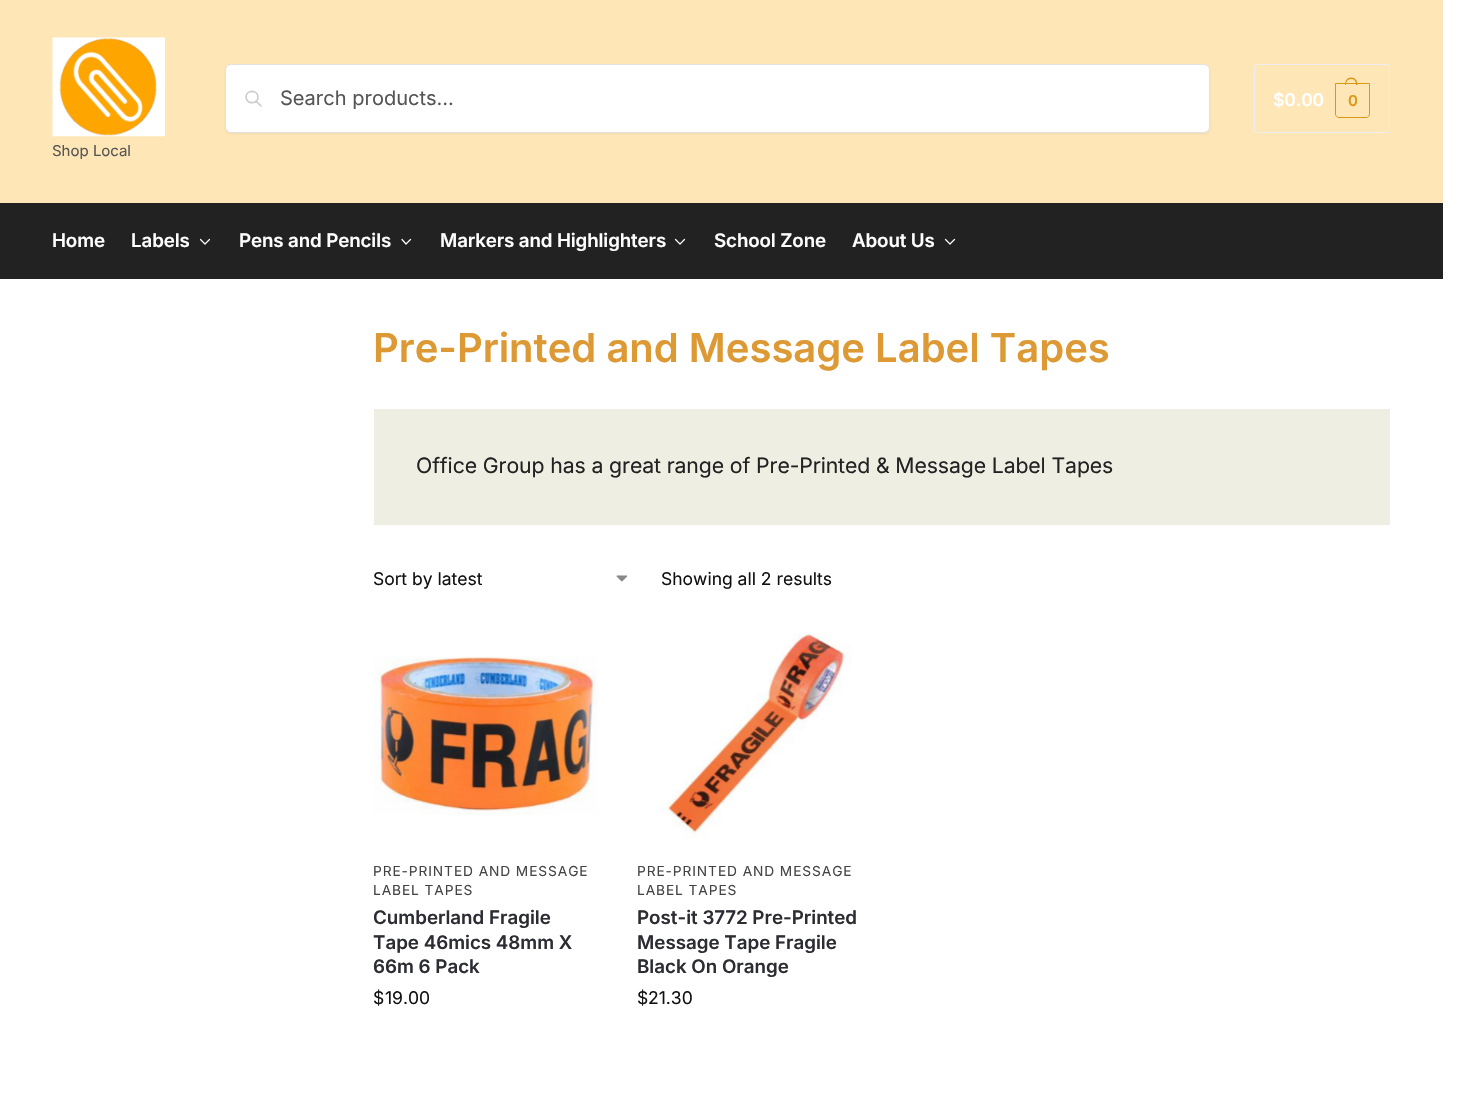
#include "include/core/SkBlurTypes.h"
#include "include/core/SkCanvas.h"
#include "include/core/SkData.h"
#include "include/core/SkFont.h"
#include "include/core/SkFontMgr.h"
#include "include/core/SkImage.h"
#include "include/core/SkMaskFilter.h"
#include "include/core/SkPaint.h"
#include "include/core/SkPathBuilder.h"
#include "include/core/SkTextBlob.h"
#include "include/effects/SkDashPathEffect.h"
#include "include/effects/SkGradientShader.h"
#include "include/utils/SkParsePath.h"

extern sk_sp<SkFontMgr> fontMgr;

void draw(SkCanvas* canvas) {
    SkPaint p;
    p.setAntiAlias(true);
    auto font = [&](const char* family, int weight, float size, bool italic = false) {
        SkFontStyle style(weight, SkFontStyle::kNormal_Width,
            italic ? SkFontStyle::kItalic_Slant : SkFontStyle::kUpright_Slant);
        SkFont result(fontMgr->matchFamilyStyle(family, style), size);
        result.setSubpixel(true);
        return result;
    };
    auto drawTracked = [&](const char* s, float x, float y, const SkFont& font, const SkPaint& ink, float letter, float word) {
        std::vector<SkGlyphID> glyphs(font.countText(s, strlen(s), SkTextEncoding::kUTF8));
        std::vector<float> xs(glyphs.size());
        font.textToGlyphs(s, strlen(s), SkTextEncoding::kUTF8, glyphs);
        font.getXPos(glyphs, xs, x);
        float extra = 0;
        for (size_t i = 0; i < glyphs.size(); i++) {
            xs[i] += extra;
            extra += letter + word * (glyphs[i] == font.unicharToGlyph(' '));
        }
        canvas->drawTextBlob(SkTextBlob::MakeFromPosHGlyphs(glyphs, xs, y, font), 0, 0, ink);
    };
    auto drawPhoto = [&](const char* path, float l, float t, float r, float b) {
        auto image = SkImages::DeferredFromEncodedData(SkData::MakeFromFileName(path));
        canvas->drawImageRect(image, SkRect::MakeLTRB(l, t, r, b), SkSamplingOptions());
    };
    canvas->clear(0xFFFFFFFF);
    p.setColor(0xFFFFE6B6);
    canvas->drawRect(SkRect::MakeLTRB(0, 0, 1443, 203), p);
    p.setColor(0x0D000000);
    p.setMaskFilter(SkMaskFilter::MakeBlur(kNormal_SkBlurStyle, 1));
    canvas->drawRoundRect(SkRect::MakeLTRB(225, 65, 1210, 134), 6, 6, p);
    p.setMaskFilter(nullptr);
    p.setColor(0xFFFFFFFF);
    canvas->drawRoundRect(SkRect::MakeLTRB(225.5f, 64.5f, 1209.5f, 132.5f), 5.5f, 5.5f, p);
    p.setStyle(SkPaint::kStroke_Style);
    p.setStrokeWidth(1);
    p.setColor(0xFFE2E2E2);
    canvas->drawRoundRect(SkRect::MakeLTRB(225.5f, 64.5f, 1209.5f, 132.5f), 5.5f, 5.5f, p);
    p.setStrokeWidth(1.7f);
    p.setStrokeCap(SkPaint::kRound_Cap);
    p.setStrokeJoin(SkPaint::kRound_Join);
    p.setColor(0xFFCCCCCC);
    canvas->drawPath(SkPathBuilder().moveTo(261, 106).lineTo(256, 101).moveTo(258, 97).cubicTo(258, 104.5f, 246.5f, 104.5f, 246, 97).cubicTo(246, 89.5f, 258, 89.5f, 258, 97).close().detach(), p);
    auto font1 = font("Inter", 400, 20);
    p.setStyle(SkPaint::kFill_Style);
    p.setColor(0xFF555555);
    canvas->drawString("Search products…", 280, 105, font1, p);
    p.setStyle(SkPaint::kStroke_Style);
    p.setStrokeWidth(1);
    p.setStrokeCap(SkPaint::kButt_Cap);
    p.setStrokeJoin(SkPaint::kMiter_Join);
    p.setColor(0xFFEEEEEE);
    canvas->drawRoundRect(SkRect::MakeLTRB(1254.5f, 64.5f, 1389.5f, 132.5f), 2, 2, p);
    auto font2 = font("Inter", 600, 17.5f);
    p.setStyle(SkPaint::kFill_Style);
    p.setColor(0xFFFFFFFF);
    drawTracked("$0.00", 1273, 106, font2, p, -0.12f, 0);
    p.setStyle(SkPaint::kStroke_Style);
    p.setColor(0xFFDC9814);
    canvas->drawPath(SkPathBuilder().moveTo(1335.5f, 83.5f).lineTo(1369.5f, 83.5f).lineTo(1369.5f, 114).cubicTo(1369.5f, 116, 1368, 117.5f, 1366, 117.5f).lineTo(1339, 117.5f).cubicTo(1337, 117.5f, 1335.5f, 116, 1335.5f, 114).close().detach(), p);
    p.setStyle(SkPaint::kFill_Style);
    canvas->drawPath(SkPathBuilder(SkPathFillType::kEvenOdd).moveTo(1351, 77.5f).cubicTo(1355.5f, 77.5f, 1357.5f, 81, 1357.5f, 85).lineTo(1345, 85).cubicTo(1345, 81, 1347, 77.5f, 1351, 77.5f).close().moveTo(1351, 79).cubicTo(1355, 79, 1356, 82, 1356, 85).lineTo(1346, 85).cubicTo(1346, 82, 1347.5f, 79, 1351, 79).close().detach(), p);
    auto font3 = font("Inter", 600, 15);
    drawTracked("0", 1348, 106, font3, p, -1, 0);
    drawPhoto("media/1.png", 52, 37, 165, 137);
    auto font4 = font("Inter", 400, 15);
    p.setColor(0xFF555555);
    canvas->drawString("Shop Local", 52, 156, font4, p);
    p.setColor(0xFF222222);
    canvas->drawRect(SkRect::MakeLTRB(0, 203, 1443, 279), p);
    auto font5 = font("Inter", 600, 18.75f);
    p.setColor(0xFFFFFFFF);
    drawTracked("Home", 52, 247, font5, p, -0.12f, 0);
    drawTracked("Labels", 131, 247, font5, p, -0.12f, 0);
    p.setStyle(SkPaint::kStroke_Style);
    p.setStrokeWidth(1.2f);
    p.setStrokeCap(SkPaint::kRound_Cap);
    p.setStrokeJoin(SkPaint::kRound_Join);
    canvas->drawPath(SkPathBuilder().moveTo(209.5f, 239.5f).lineTo(205, 244).lineTo(200.5f, 239.5f).detach(), p);
    p.setStyle(SkPaint::kFill_Style);
    drawTracked("Pens and Pencils", 239, 247, font5, p, -0.12f, 0);
    p.setStyle(SkPaint::kStroke_Style);
    canvas->drawPath(SkPathBuilder().moveTo(410.5f, 239.5f).lineTo(406, 244).lineTo(402, 239.5f).detach(), p);
    p.setStyle(SkPaint::kFill_Style);
    drawTracked("Markers and Highlighters", 440, 247, font5, p, -0.12f, 0);
    p.setStyle(SkPaint::kStroke_Style);
    canvas->drawPath(SkPathBuilder().moveTo(684.5f, 239.5f).lineTo(680, 244).lineTo(675.5f, 239.5f).detach(), p);
    p.setStyle(SkPaint::kFill_Style);
    drawTracked("School Zone", 714, 247, font5, p, -0.12f, 0);
    drawTracked("About Us", 852, 247, font5, p, -0.12f, 0);
    p.setStyle(SkPaint::kStroke_Style);
    canvas->drawPath(SkPathBuilder().moveTo(954.5f, 239.5f).lineTo(950, 244).lineTo(945.5f, 239.5f).detach(), p);
    auto font6 = font("Inter", 600, 40);
    p.setStyle(SkPaint::kFill_Style);
    p.setColor(0xFFDD9933);
    canvas->drawString("Pre-Printed and Message Label Tapes", 373, 362, font6, p);
    p.setColor(0xFFEFEEE3);
    canvas->drawRect(SkRect::MakeLTRB(374, 409, 1390, 525), p);
    auto font7 = font("Inter", 400, 21.25f);
    p.setColor(0xFF222222);
    drawTracked("Office Group has a great range of Pre-Printed & Message Label Tapes", 416, 473, font7, p, -0.12f, 0);
    drawPhoto("media/2.png", 616, 575, 628, 582);
    auto font8 = font("Inter", 400, 17.5f);
    p.setColor(0xFF111111);
    canvas->drawString("Sort by latest", 373, 585, font8, p);
    canvas->drawString("Showing all 2 results", 661, 585, font8, p);
    drawPhoto("media/3.png", 373, 656, 599, 815);
    auto font9 = font("Inter", 400, 13.75f);
    p.setColor(0xFF444444);
    drawTracked("PRE-PRINTED AND MESSAGE", 373, 876, font9, p, 0.9f, 0);
    drawTracked("LABEL TAPES", 373, 895, font9, p, 0.9f, 0);
    p.setColor(0xFF2C2D33);
    {
        const struct { const char* s; float x, y; } items[] = {
            {"Cumberland Fragile", 373, 924},
            {"Tape 46mics 48mm X", 373, 949},
            {"66m 6 Pack", 373, 973},
        };
        for (auto [s, x, y] : items) {
            canvas->drawString(s, x, y, font5, p);
        }
    }
    p.setColor(0xFF111111);
    canvas->drawString("$", 373, 1004, font8, p);
    canvas->drawString("19.00", 385, 1004, font8, p);
    drawPhoto("media/4.png", 660, 633, 852, 839);
    p.setColor(0xFF444444);
    drawTracked("PRE-PRINTED AND MESSAGE", 637, 876, font9, p, 0.9f, 0);
    drawTracked("LABEL TAPES", 637, 895, font9, p, 0.9f, 0);
    p.setColor(0xFF2C2D33);
    {
        const struct { const char* s; float x, y; } items[] = {
            {"Post-it 3772 Pre-Printed", 637, 924},
            {"Message Tape Fragile", 637, 949},
            {"Black On Orange", 637, 973},
        };
        for (auto [s, x, y] : items) {
            canvas->drawString(s, x, y, font5, p);
        }
    }
    p.setColor(0xFF111111);
    canvas->drawString("$", 637, 1004, font8, p);
    canvas->drawString("21.30", 648, 1004, font8, p);
}
